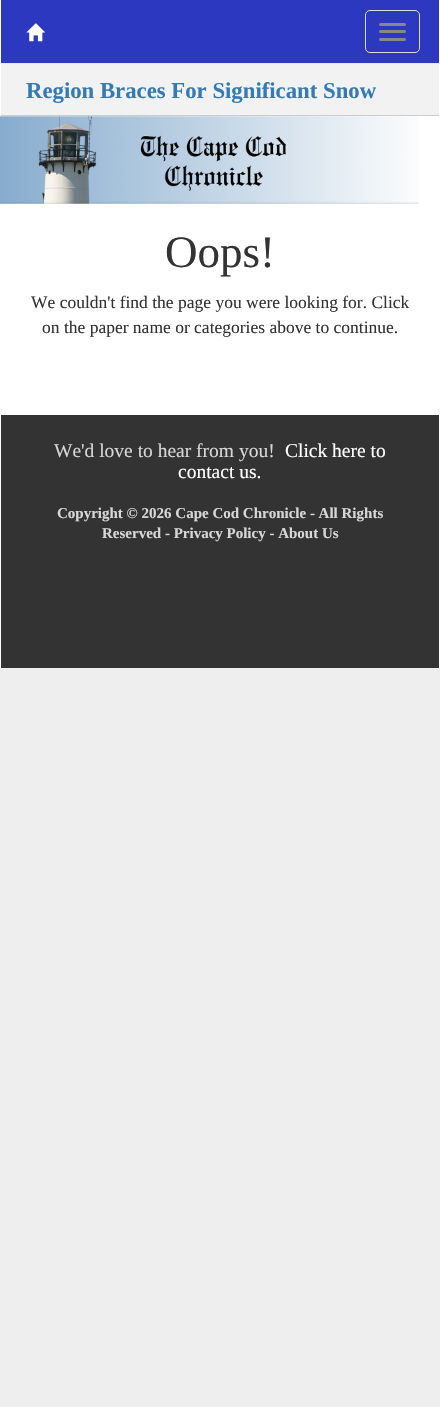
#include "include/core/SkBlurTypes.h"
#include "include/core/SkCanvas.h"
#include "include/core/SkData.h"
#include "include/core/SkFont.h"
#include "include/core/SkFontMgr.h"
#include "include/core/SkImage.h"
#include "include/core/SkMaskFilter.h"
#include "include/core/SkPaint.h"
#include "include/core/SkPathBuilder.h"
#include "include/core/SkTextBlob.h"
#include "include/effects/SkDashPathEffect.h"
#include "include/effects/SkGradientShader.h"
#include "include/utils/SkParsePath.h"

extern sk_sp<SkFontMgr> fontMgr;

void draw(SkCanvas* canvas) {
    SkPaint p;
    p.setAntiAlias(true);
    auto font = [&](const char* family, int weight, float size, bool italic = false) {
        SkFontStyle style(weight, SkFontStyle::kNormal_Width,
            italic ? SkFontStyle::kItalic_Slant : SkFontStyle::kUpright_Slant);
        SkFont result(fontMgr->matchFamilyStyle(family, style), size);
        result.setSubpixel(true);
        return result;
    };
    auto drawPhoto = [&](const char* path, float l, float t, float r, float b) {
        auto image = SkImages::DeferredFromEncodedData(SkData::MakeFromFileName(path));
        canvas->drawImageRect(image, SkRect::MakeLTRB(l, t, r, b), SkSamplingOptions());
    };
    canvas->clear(0xFFEEEEEE);
    {
        const struct { float l, t, r, b; SkColor color; } items[] = {
            {439, 0, 440, 668, 0xFFFFFFFF},
            {0, 0, 1, 668, 0xFFFFFFFF},
            {1, 116, 439, 415, 0xFFFFFFFF},
            {0, 63, 440, 64, 0xFFE7E7E7},
            {1, 0, 439, 63, 0xFF2D38C1},
        };
        for (auto [l, t, r, b, color] : items) {
            p.setColor(color);
            canvas->drawRect(SkRect::MakeLTRB(l, t, r, b), p);
        }
    }
    drawPhoto("media/1.png", 26, 23, 45, 42);
    p.setStyle(SkPaint::kStroke_Style);
    p.setStrokeWidth(1);
    p.setColor(0xFFDDDDDD);
    canvas->drawRoundRect(SkRect::MakeLTRB(365.5f, 10.5f, 419.5f, 52.5f), 4.5f, 4.5f, p);
    p.setStyle(SkPaint::kFill_Style);
    p.setColor(0xFF888888);
    canvas->drawRoundRect(SkRect::MakeLTRB(379, 23, 406, 26), 1.5f, 1.5f, p);
    canvas->drawRoundRect(SkRect::MakeLTRB(379, 30, 406, 33), 1.5f, 1.5f, p);
    canvas->drawRoundRect(SkRect::MakeLTRB(379, 38, 406, 41), 1.5f, 1.5f, p);
    p.setColor(0xFFF2F2F2);
    canvas->drawRect(SkRect::MakeLTRB(1, 64, 439, 115), p);
    p.setColor(0xFFCCCCCC);
    canvas->drawRect(SkRect::MakeLTRB(1, 115, 439, 116), p);
    auto font1 = font("Liberation Serif", 700, 22.75f);
    p.setColor(0xFF337AB7);
    canvas->drawString("Region Braces For Significant Snow", 26, 98, font1, p);
    drawPhoto("media/2.png", 0, 116, 419, 204);
    auto font2 = font("Liberation Serif", 400, 45);
    p.setColor(0xFF333333);
    canvas->drawString("Oops!", 165, 267, font2, p);
    auto font3 = font("Liberation Serif", 400, 17.5f);
    canvas->drawString("We couldn't find the page you were looking for. Click", 31, 308, font3, p);
    canvas->drawString("on the paper name or categories above to continue.", 42, 333, font3, p);
    canvas->drawRect(SkRect::MakeLTRB(1, 415, 439, 668), p);
    auto font4 = font("Liberation Serif", 400, 19.5f);
    p.setColor(0xFFD7D7D7);
    canvas->drawString("We'd love to hear from you!", 54, 457, font4, p);
    p.setColor(0xFFFFFFFF);
    canvas->drawString("Click here to", 285, 457, font4, p);
    canvas->drawString("contact us.", 178, 478, font4, p);
    auto font5 = font("Liberation Serif", 700, 15);
    p.setColor(0xFFD7D7D7);
    canvas->drawString("Copyright © 2026 Cape Cod Chronicle - All Rights", 57, 518, font5, p);
    canvas->drawString("Reserved - Privacy Policy - About Us", 102, 538, font5, p);
}
